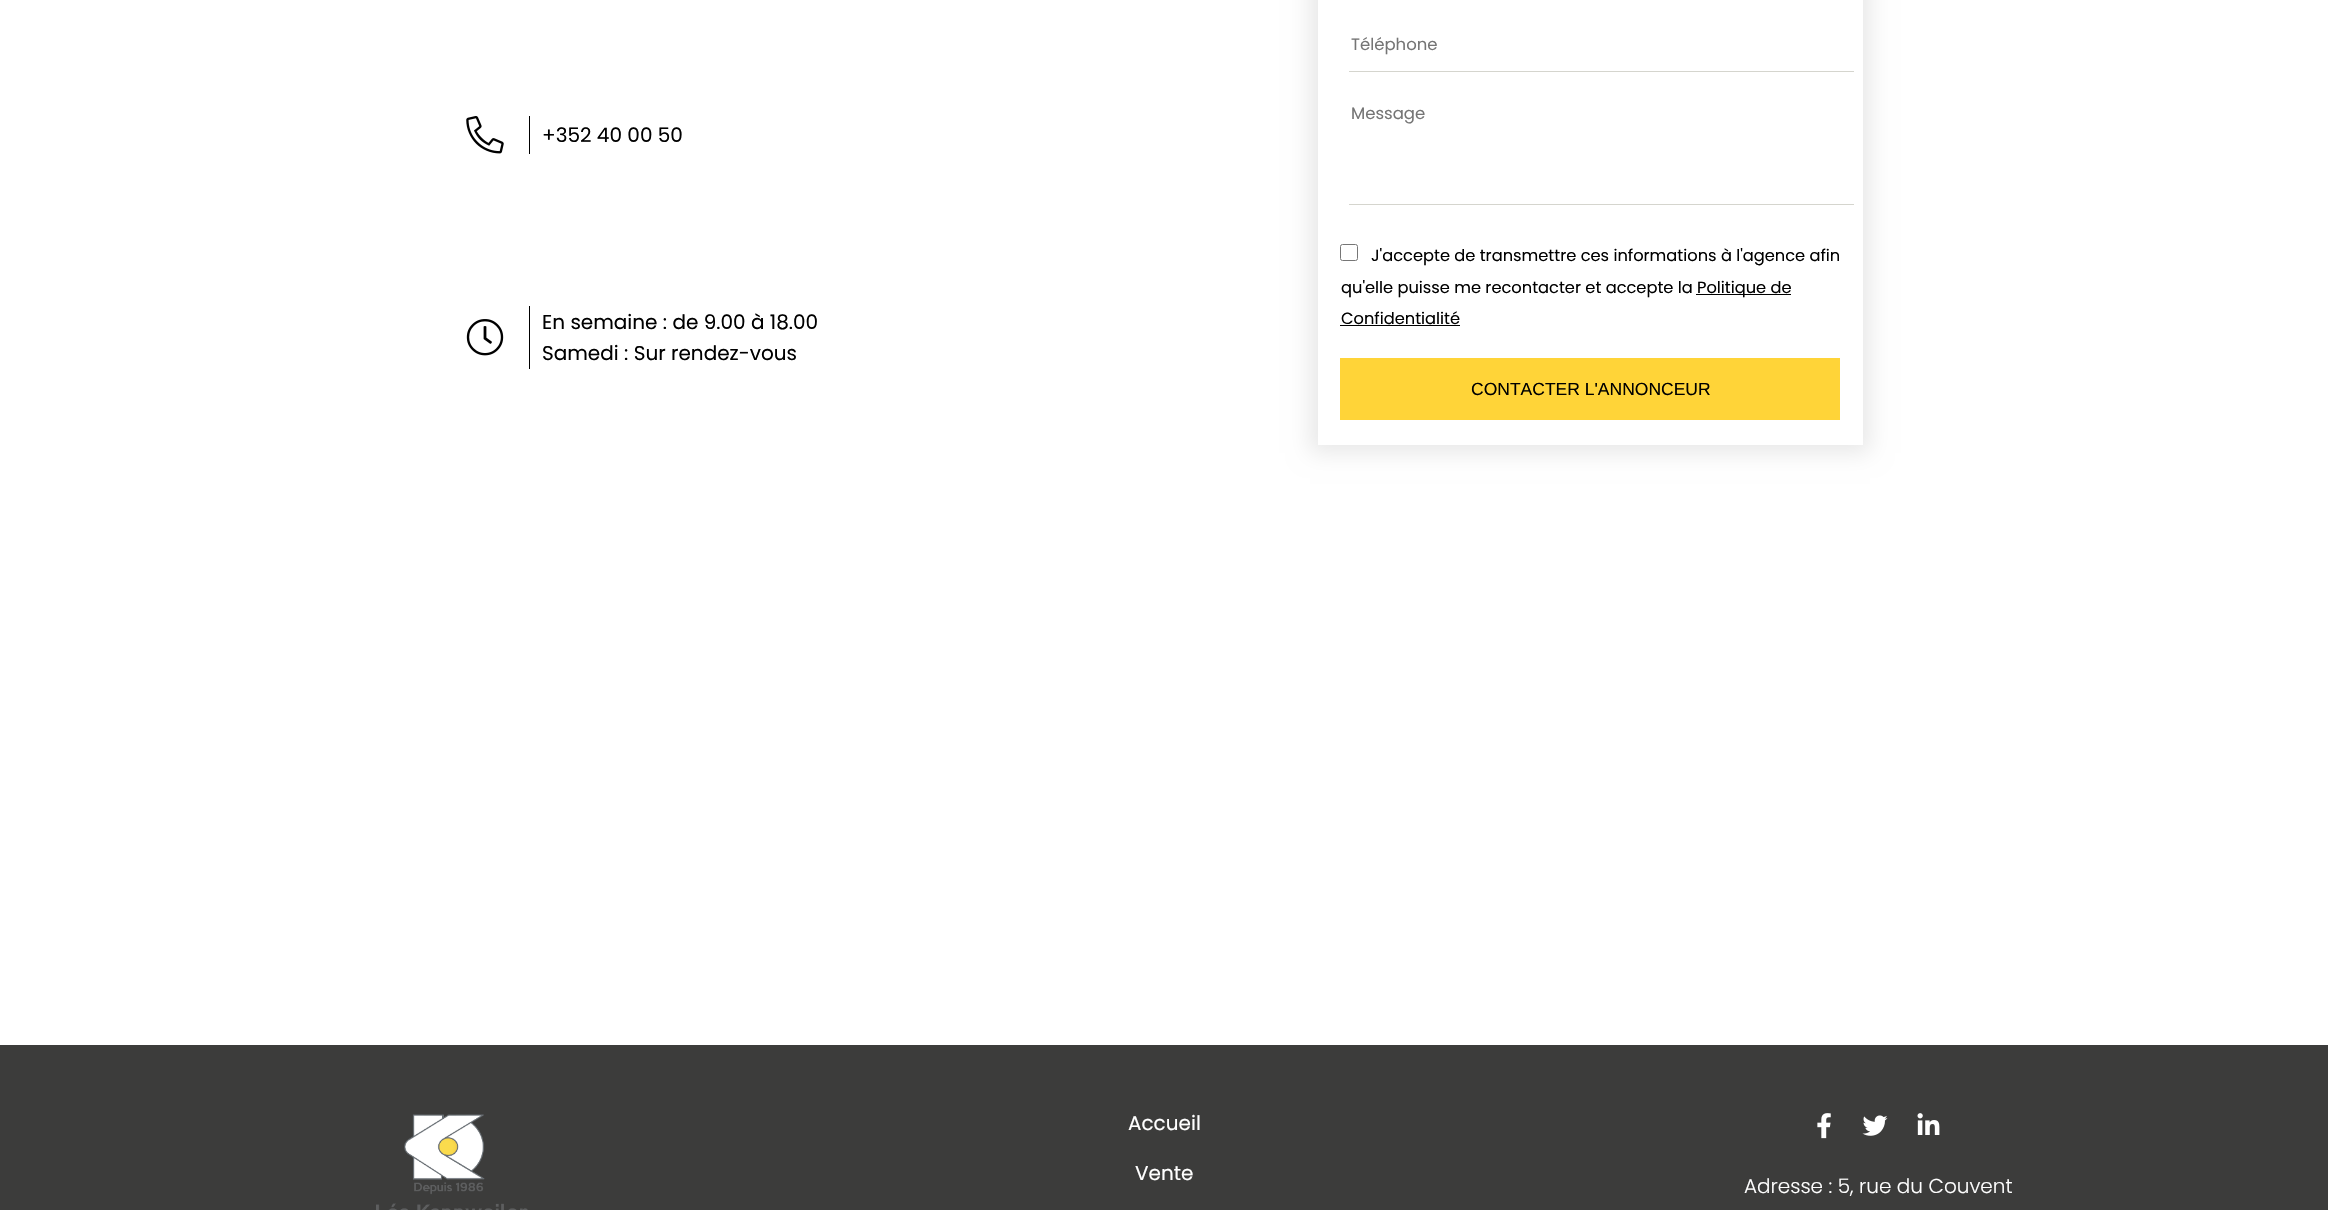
#include "include/core/SkBlurTypes.h"
#include "include/core/SkCanvas.h"
#include "include/core/SkData.h"
#include "include/core/SkFont.h"
#include "include/core/SkFontMgr.h"
#include "include/core/SkImage.h"
#include "include/core/SkMaskFilter.h"
#include "include/core/SkPaint.h"
#include "include/core/SkPathBuilder.h"
#include "include/core/SkTextBlob.h"
#include "include/effects/SkDashPathEffect.h"
#include "include/effects/SkGradientShader.h"
#include "include/utils/SkParsePath.h"

extern sk_sp<SkFontMgr> fontMgr;

void draw(SkCanvas* canvas) {
    SkPaint p;
    p.setAntiAlias(true);
    auto font = [&](const char* family, int weight, float size, bool italic = false) {
        SkFontStyle style(weight, SkFontStyle::kNormal_Width,
            italic ? SkFontStyle::kItalic_Slant : SkFontStyle::kUpright_Slant);
        SkFont result(fontMgr->matchFamilyStyle(family, style), size);
        result.setSubpixel(true);
        return result;
    };
    auto drawPhoto = [&](const char* path, float l, float t, float r, float b) {
        auto image = SkImages::DeferredFromEncodedData(SkData::MakeFromFileName(path));
        canvas->drawImageRect(image, SkRect::MakeLTRB(l, t, r, b), SkSamplingOptions());
    };
    canvas->clear(0xFFFFFFFF);
    p.setColor(0xFF000000);
    canvas->drawRect(SkRect::MakeLTRB(529, 116, 530, 154), p);
    drawPhoto("media/1.png", 466, 116, 504, 154);
    auto font1 = font("Poppins", 400, 20);
    canvas->drawString("+352 40 00 50", 542, 142, font1, p);
    canvas->drawRect(SkRect::MakeLTRB(529, 306, 530, 369), p);
    drawPhoto("media/2.png", 466, 319, 504, 356);
    canvas->drawString("En semaine : de 9.00 à 18.00", 542, 329, font1, p);
    canvas->drawString("Samedi : Sur rendez-vous", 542, 360, font1, p);
    p.setColor(0x17000000);
    p.setMaskFilter(SkMaskFilter::MakeBlur(kNormal_SkBlurStyle, 10.5f));
    canvas->drawRect(SkRect::MakeLTRB(1310, -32, 1870, 453), p);
    p.setMaskFilter(nullptr);
    p.setColor(0xFFFFFFFF);
    canvas->drawRect(SkRect::MakeLTRB(1318, 0, 1863, 445), p);
    p.setColor(0xFFD5D5CE);
    canvas->drawRect(SkRect::MakeLTRB(1349, 71, 1854, 72), p);
    auto font2 = font("Poppins", 400, 16.5f);
    p.setColor(0xFF757575);
    canvas->drawString("Téléphone", 1351, 50, font2, p);
    p.setColor(0xFFD5D5CE);
    canvas->drawRect(SkRect::MakeLTRB(1349, 204, 1854, 205), p);
    p.setColor(0xFF757575);
    canvas->drawString("Message", 1351, 119, font2, p);
    p.setStyle(SkPaint::kStroke_Style);
    p.setStrokeWidth(1);
    p.setColor(0xFF767676);
    canvas->drawRoundRect(SkRect::MakeLTRB(1340.5f, 244.5f, 1357.5f, 260.5f), 2, 2, p);
    auto font3 = font("Poppins", 400, 16.25f);
    p.setStyle(SkPaint::kFill_Style);
    p.setColor(0xFF000000);
    canvas->drawString("J'accepte de transmettre ces informations à l'agence afin", 1371, 261, font3, p);
    canvas->drawString("qu'elle puisse me recontacter et accepte la", 1341, 293, font3, p);
    canvas->drawRect(SkRect::MakeLTRB(1696, 294, 1791, 295), p);
    canvas->drawString("Politique de", 1697, 293, font3, p);
    canvas->drawString("Confidentialité", 1341, 324, font3, p);
    canvas->drawRect(SkRect::MakeLTRB(1340, 325, 1460, 326), p);
    p.setColor(0xFFFFD438);
    canvas->drawRect(SkRect::MakeLTRB(1340, 358, 1840, 420), p);
    auto font4 = font("Liberation Sans", 400, 17.5f);
    p.setColor(0xFF000000);
    canvas->drawString("CONTACTER L'ANNONCEUR", 1471, 395, font4, p);
    p.setColor(0xFF3C3C3B);
    canvas->drawRect(SkRect::MakeLTRB(0, 1045, 2328, 1210), p);
    drawPhoto("media/3.png", 376, 1114, 528, 1210);
    p.setColor(0xFFFFFFFF);
    canvas->drawString("Accueil", 1128, 1130, font1, p);
    canvas->drawString("Vente", 1135, 1180, font1, p);
    drawPhoto("media/4.png", 1817, 1113, 1831, 1139);
    drawPhoto("media/5.png", 1862, 1115, 1888, 1136);
    drawPhoto("media/6.png", 1917, 1113, 1940, 1135);
    auto font5 = font("Poppins", 300, 20);
    canvas->drawString("Adresse : 5, rue du Couvent", 1744, 1193, font5, p);
}
